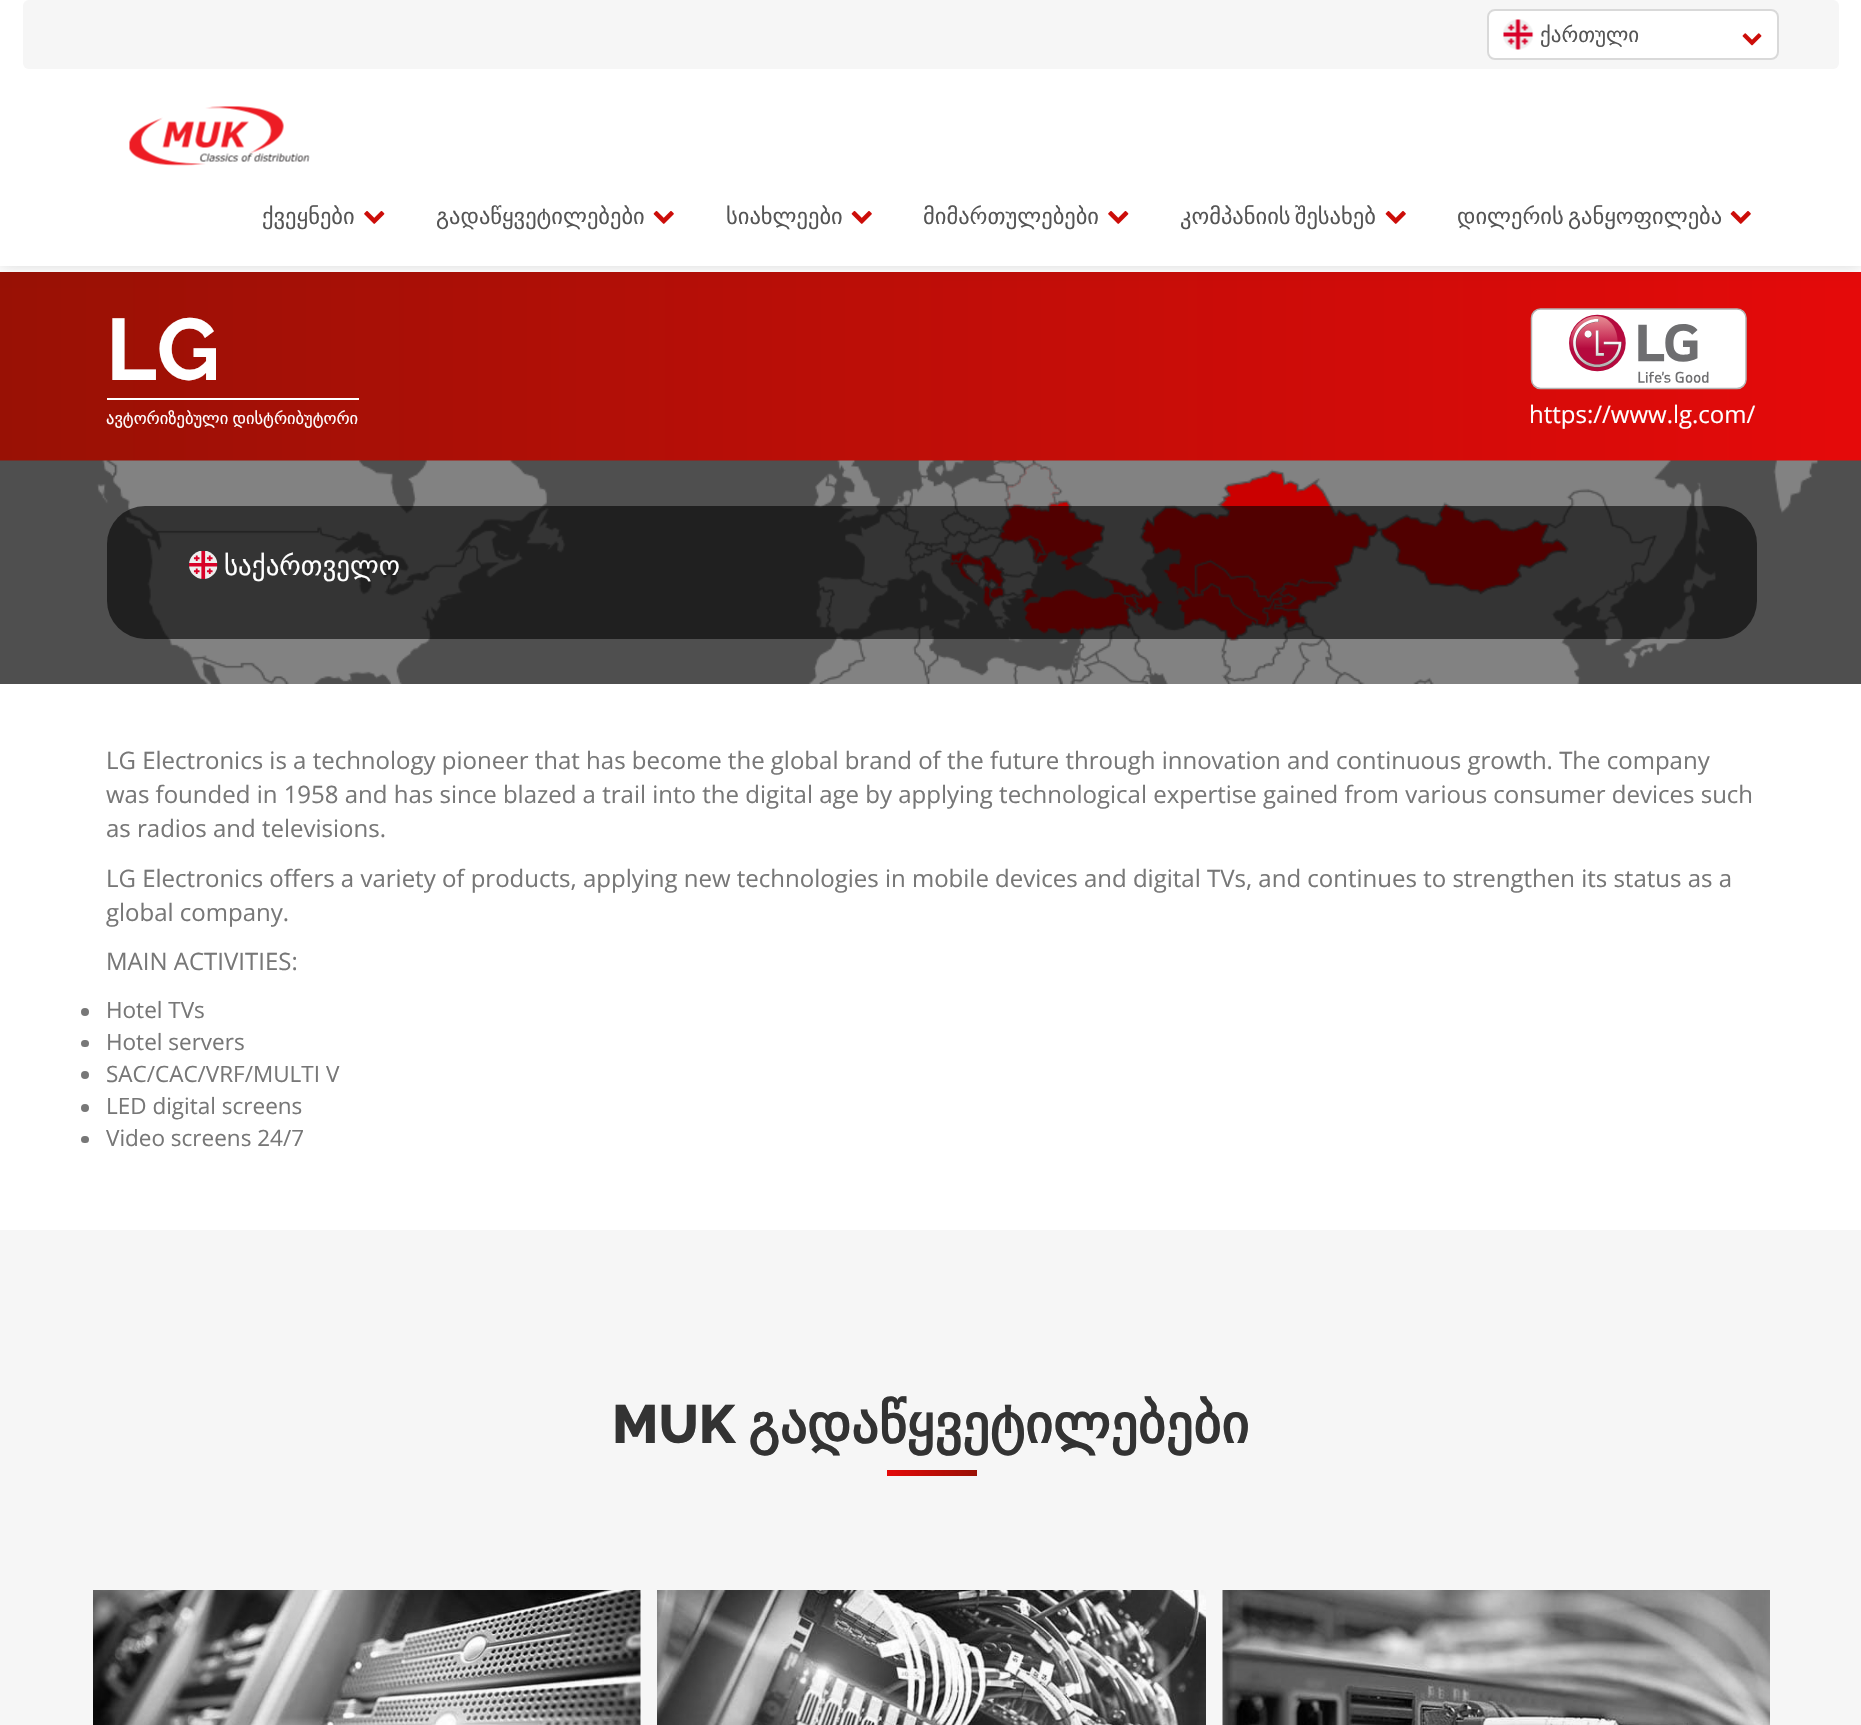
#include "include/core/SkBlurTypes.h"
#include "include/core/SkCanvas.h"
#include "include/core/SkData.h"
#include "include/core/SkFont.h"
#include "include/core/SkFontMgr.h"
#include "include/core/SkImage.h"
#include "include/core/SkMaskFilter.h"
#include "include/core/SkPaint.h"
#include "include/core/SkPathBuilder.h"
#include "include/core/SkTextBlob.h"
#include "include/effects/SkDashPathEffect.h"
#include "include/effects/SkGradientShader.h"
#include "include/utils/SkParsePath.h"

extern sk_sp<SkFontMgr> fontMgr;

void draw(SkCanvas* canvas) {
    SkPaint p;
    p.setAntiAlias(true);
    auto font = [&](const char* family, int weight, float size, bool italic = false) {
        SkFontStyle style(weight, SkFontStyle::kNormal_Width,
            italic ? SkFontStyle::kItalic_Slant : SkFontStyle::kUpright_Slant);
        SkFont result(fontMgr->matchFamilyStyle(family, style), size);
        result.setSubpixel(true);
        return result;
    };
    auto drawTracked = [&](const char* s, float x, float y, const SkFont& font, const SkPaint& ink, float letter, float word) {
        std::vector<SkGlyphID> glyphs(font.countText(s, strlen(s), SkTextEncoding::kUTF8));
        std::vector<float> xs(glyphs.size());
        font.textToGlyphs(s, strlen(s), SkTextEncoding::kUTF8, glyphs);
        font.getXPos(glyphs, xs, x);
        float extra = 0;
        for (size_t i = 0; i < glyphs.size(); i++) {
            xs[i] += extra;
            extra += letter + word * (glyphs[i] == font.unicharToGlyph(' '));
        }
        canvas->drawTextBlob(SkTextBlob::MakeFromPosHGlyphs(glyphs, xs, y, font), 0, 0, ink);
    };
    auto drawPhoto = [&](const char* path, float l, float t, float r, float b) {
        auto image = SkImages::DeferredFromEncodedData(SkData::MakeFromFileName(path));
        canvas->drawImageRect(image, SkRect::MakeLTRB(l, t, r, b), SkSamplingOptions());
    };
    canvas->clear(0xFFFFFFFF);
    {
        const SkColor colors[] = {0xFF991105, 0xFFE50A0A};
        const float stops[] = {0, 1};
        const SkPoint ends[] = {{0, 366}, {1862, 366}};
        p.setShader(SkGradientShader::MakeLinear(ends, colors, stops, 2, SkTileMode::kClamp));
        p.setAlpha(255);
    }
    canvas->drawRect(SkRect::MakeLTRB(0, 272, 1861, 461), p);
    p.setShader(nullptr);
    p.setColor(0x26000000);
    p.setMaskFilter(SkMaskFilter::MakeBlur(kNormal_SkBlurStyle, 7.5f));
    canvas->drawRect(SkRect::MakeLTRB(0, 0, 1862, 266), p);
    p.setMaskFilter(nullptr);
    p.setColor(0xFFFFFFFF);
    canvas->drawRect(SkRect::MakeLTRB(0, 0, 1861, 266), p);
    p.setColor(0xFFF6F6F6);
    canvas->drawRoundRect(SkRect::MakeLTRB(23, 0, 1839, 69), 6, 6, p);
    p.setColor(0xFFFFFFFF);
    canvas->drawRoundRect(SkRect::MakeLTRB(1487, 9, 1779, 60), 8, 8, p);
    p.setStyle(SkPaint::kStroke_Style);
    p.setStrokeWidth(2);
    p.setColor(0x4D808080);
    canvas->drawRoundRect(SkRect::MakeLTRB(1488, 10, 1778, 59), 7, 7, p);
    drawPhoto("media/1.png", 1503, 19, 1534, 50);
    auto font1 = font("DejaVu Sans", 400, 21);
    p.setStyle(SkPaint::kFill_Style);
    p.setColor(0xFF555555);
    canvas->drawString("ქართული", 1540, 42, font1, p);
    drawPhoto("media/2.png", 1742, 33, 1762, 46);
    drawPhoto("media/3.png", 129, 106, 310, 166);
    auto font2 = font("DejaVu Sans", 400, 22.5f);
    canvas->drawString("ქვეყნები", 262, 224, font2, p);
    drawPhoto("media/4.png", 364, 211, 385, 224);
    canvas->drawString("გადაწყვეტილებები", 436, 224, font2, p);
    drawPhoto("media/5.png", 653, 211, 674, 224);
    canvas->drawString("სიახლეები", 726, 224, font2, p);
    drawPhoto("media/5.png", 851, 211, 872, 224);
    canvas->drawString("მიმართულებები", 923, 224, font2, p);
    drawPhoto("media/4.png", 1108, 211, 1129, 224);
    drawTracked("კომპანიის შესახებ", 1180, 224, font2, p, 0, -3);
    drawPhoto("media/5.png", 1385, 211, 1406, 224);
    drawTracked("დილერის განყოფილება", 1457, 224, font2, p, 0, -3);
    drawPhoto("media/5.png", 1730, 211, 1751, 224);
    p.setColor(0xFFFFFFFF);
    canvas->drawRect(SkRect::MakeLTRB(107, 398, 359, 400), p);
    auto font3 = font("Raleway", 700, 87);
    canvas->drawString("LG", 106, 380, font3, p);
    auto font4 = font("DejaVu Sans", 400, 16.5f);
    drawTracked("ავტორიზებული დისტრიბუტორი", 106, 424, font4, p, 0, -1);
    drawPhoto("media/6.png", 1530, 308, 1747, 390);
    auto font5 = font("Open Sans", 400, 24);
    canvas->drawString("https://www.lg.com/", 1529, 423, font5, p);
    drawPhoto("media/7.png", 0, 460, 1861, 684);
    p.setColor(0x99000000);
    canvas->drawRoundRect(SkRect::MakeLTRB(107, 506, 1757, 639), 38, 38, p);
    drawPhoto("media/8.png", 189, 551, 218, 579);
    auto font6 = font("DejaVu Sans", 400, 27);
    p.setColor(0xFFFFFFFF);
    canvas->drawString("საქართველო", 224, 575, font6, p);
    p.setColor(0xFF777777);
    {
        const struct { const char* s; float x, y; } items[] = {
            {"LG Electronics is a technology pioneer that has become the global brand of the future through innovation and continuous growth. The company", 106, 769},
            {"was founded in 1958 and has since blazed a trail into the digital age by applying technological expertise gained from various consumer devices such", 106, 803},
            {"as radios and televisions.", 106, 837},
            {"LG Electronics offers a variety of products, applying new technologies in mobile devices and digital TVs, and continues to strengthen its status as a", 106, 887},
            {"global company.", 106, 921},
            {"MAIN ACTIVITIES:", 106, 970},
        };
        for (auto [s, x, y] : items) {
            canvas->drawString(s, x, y, font5, p);
        }
    }
    canvas->drawCircle(85, 1012, 4, p);
    auto font7 = font("Open Sans", 400, 22.5f);
    canvas->drawString("Hotel TVs", 106, 1018, font7, p);
    canvas->drawRoundRect(SkRect::MakeLTRB(81, 1040, 89, 1047), 3.5f, 3.5f, p);
    canvas->drawString("Hotel servers", 106, 1050, font7, p);
    canvas->drawCircle(85, 1075, 4, p);
    canvas->drawString("SAC/CAC/VRF/MULTI V", 106, 1082, font7, p);
    canvas->drawCircle(85, 1108, 4, p);
    canvas->drawString("LED digital screens", 106, 1114, font7, p);
    canvas->drawRoundRect(SkRect::MakeLTRB(81, 1136, 89, 1143), 3.5f, 3.5f, p);
    canvas->drawString("Video screens 24/7", 106, 1146, font7, p);
    p.setColor(0xFFF6F6F6);
    canvas->drawRect(SkRect::MakeLTRB(0, 1230, 1861, 1725), p);
    auto font8 = font("Raleway", 800, 54);
    p.setColor(0xFF333333);
    canvas->drawString("MUK", 612, 1443, font8, p);
    auto font9 = font("DejaVu Sans", 700, 54);
    canvas->drawString("გადაწყვეტილებები", 748, 1443, font9, p);
    {
        const SkColor colors[] = {0xFFE50A0A, 0xFF991105};
        const float stops[] = {0, 1};
        const SkPoint ends[] = {{887, 1473}, {977, 1473}};
        p.setShader(SkGradientShader::MakeLinear(ends, colors, stops, 2, SkTileMode::kClamp));
        p.setAlpha(255);
    }
    canvas->drawRect(SkRect::MakeLTRB(887, 1470, 977, 1476), p);
    drawPhoto("media/9.png", 93, 1590, 641, 1725);
    drawPhoto("media/10.png", 657, 1590, 1206, 1725);
    drawPhoto("media/11.png", 1222, 1590, 1770, 1725);
}
